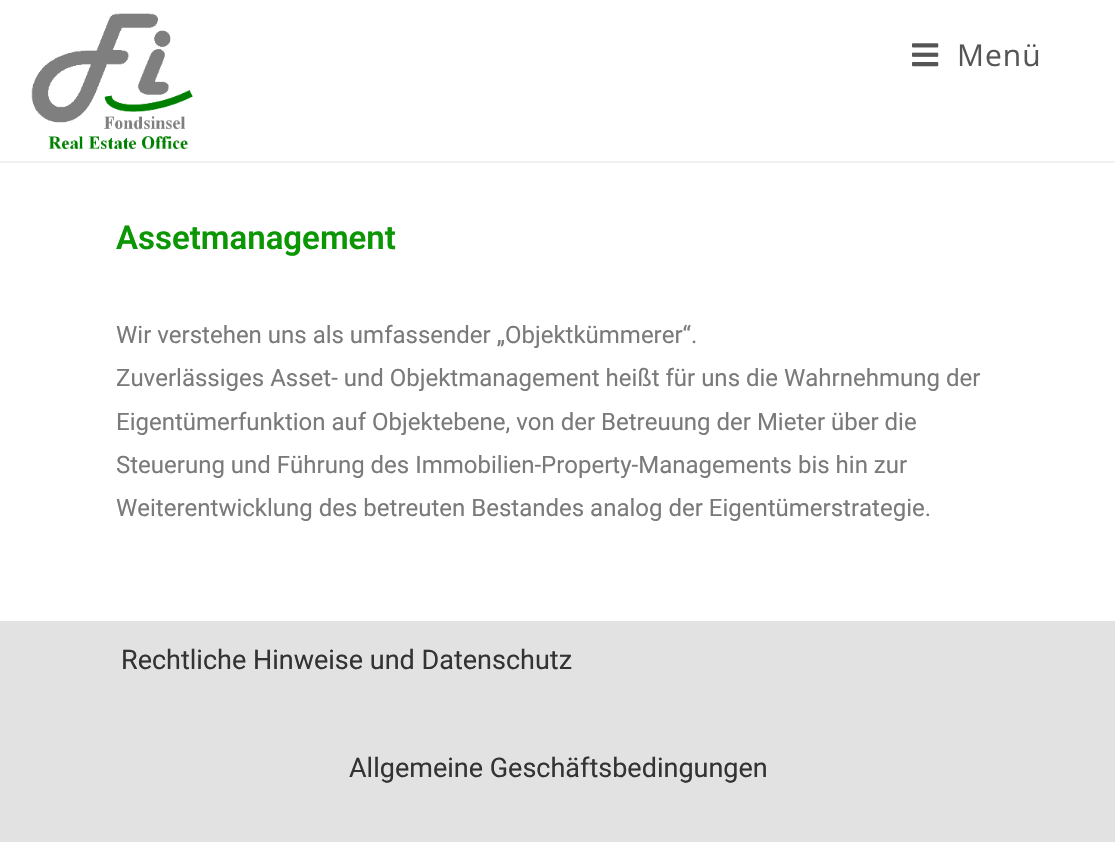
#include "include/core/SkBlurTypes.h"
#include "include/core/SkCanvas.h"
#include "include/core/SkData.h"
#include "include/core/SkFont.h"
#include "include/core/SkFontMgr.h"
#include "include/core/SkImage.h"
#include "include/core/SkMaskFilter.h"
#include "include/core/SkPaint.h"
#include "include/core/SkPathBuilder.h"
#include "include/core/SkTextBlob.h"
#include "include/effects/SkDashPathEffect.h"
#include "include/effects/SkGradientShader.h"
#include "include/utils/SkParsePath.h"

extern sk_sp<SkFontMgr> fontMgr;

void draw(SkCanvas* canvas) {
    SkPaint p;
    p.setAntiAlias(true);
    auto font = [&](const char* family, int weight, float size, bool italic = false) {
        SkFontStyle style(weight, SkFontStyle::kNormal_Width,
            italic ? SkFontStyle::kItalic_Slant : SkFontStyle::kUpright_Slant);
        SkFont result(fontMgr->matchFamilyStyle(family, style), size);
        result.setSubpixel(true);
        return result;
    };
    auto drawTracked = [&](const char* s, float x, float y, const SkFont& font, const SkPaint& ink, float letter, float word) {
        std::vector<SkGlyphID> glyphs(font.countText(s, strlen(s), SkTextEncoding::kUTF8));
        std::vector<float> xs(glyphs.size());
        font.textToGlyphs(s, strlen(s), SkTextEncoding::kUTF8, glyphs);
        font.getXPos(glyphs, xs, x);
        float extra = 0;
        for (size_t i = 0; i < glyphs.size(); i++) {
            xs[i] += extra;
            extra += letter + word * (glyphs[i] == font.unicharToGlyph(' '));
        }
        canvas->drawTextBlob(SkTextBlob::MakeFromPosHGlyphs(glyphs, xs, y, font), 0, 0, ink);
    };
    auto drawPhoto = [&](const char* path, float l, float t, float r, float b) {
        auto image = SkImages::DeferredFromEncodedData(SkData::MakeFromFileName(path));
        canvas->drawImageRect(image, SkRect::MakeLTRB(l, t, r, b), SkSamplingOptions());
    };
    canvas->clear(0xFFFFFFFF);
    p.setColor(0xFFF1F1F1);
    canvas->drawRect(SkRect::MakeLTRB(0, 161, 1115, 163), p);
    drawPhoto("media/1.png", 31, 13, 193, 150);
    drawPhoto("media/2.png", 912, 43, 939, 67);
    auto font1 = font("Open Sans", 400, 30);
    p.setColor(0xFF555555);
    drawTracked("Menü", 957, 66, font1, p, 1, 0);
    auto font2 = font("Roboto", 600, 33);
    p.setColor(0xFF0B9604);
    canvas->drawString("Assetmanagement", 116, 249, font2, p);
    auto font3 = font("Roboto", 400, 24);
    p.setColor(0xFF7A7A7A);
    {
        const struct { const char* s; float x, y; } items[] = {
            {"Wir verstehen uns als umfassender „Objektkümmerer“.", 116, 343},
            {"Zuverlässiges Asset- und Objektmanagement heißt für uns die Wahrnehmung der", 116, 386},
            {"Eigentümerfunktion auf Objektebene, von der Betreuung der Mieter über die", 116, 430},
            {"Steuerung und Führung des Immobilien-Property-Managements bis hin zur", 116, 473},
            {"Weiterentwicklung des betreuten Bestandes analog der Eigentümerstrategie.", 116, 516},
        };
        for (auto [s, x, y] : items) {
            canvas->drawString(s, x, y, font3, p);
        }
    }
    p.setColor(0xFFE2E2E2);
    canvas->drawRect(SkRect::MakeLTRB(0, 621, 1115, 842), p);
    auto font4 = font("Roboto", 400, 27);
    p.setColor(0xFF333333);
    canvas->drawString("Rechtliche Hinweise und Datenschutz", 121, 669, font4, p);
    canvas->drawString("Allgemeine Geschäftsbedingungen", 349, 777, font4, p);
}
